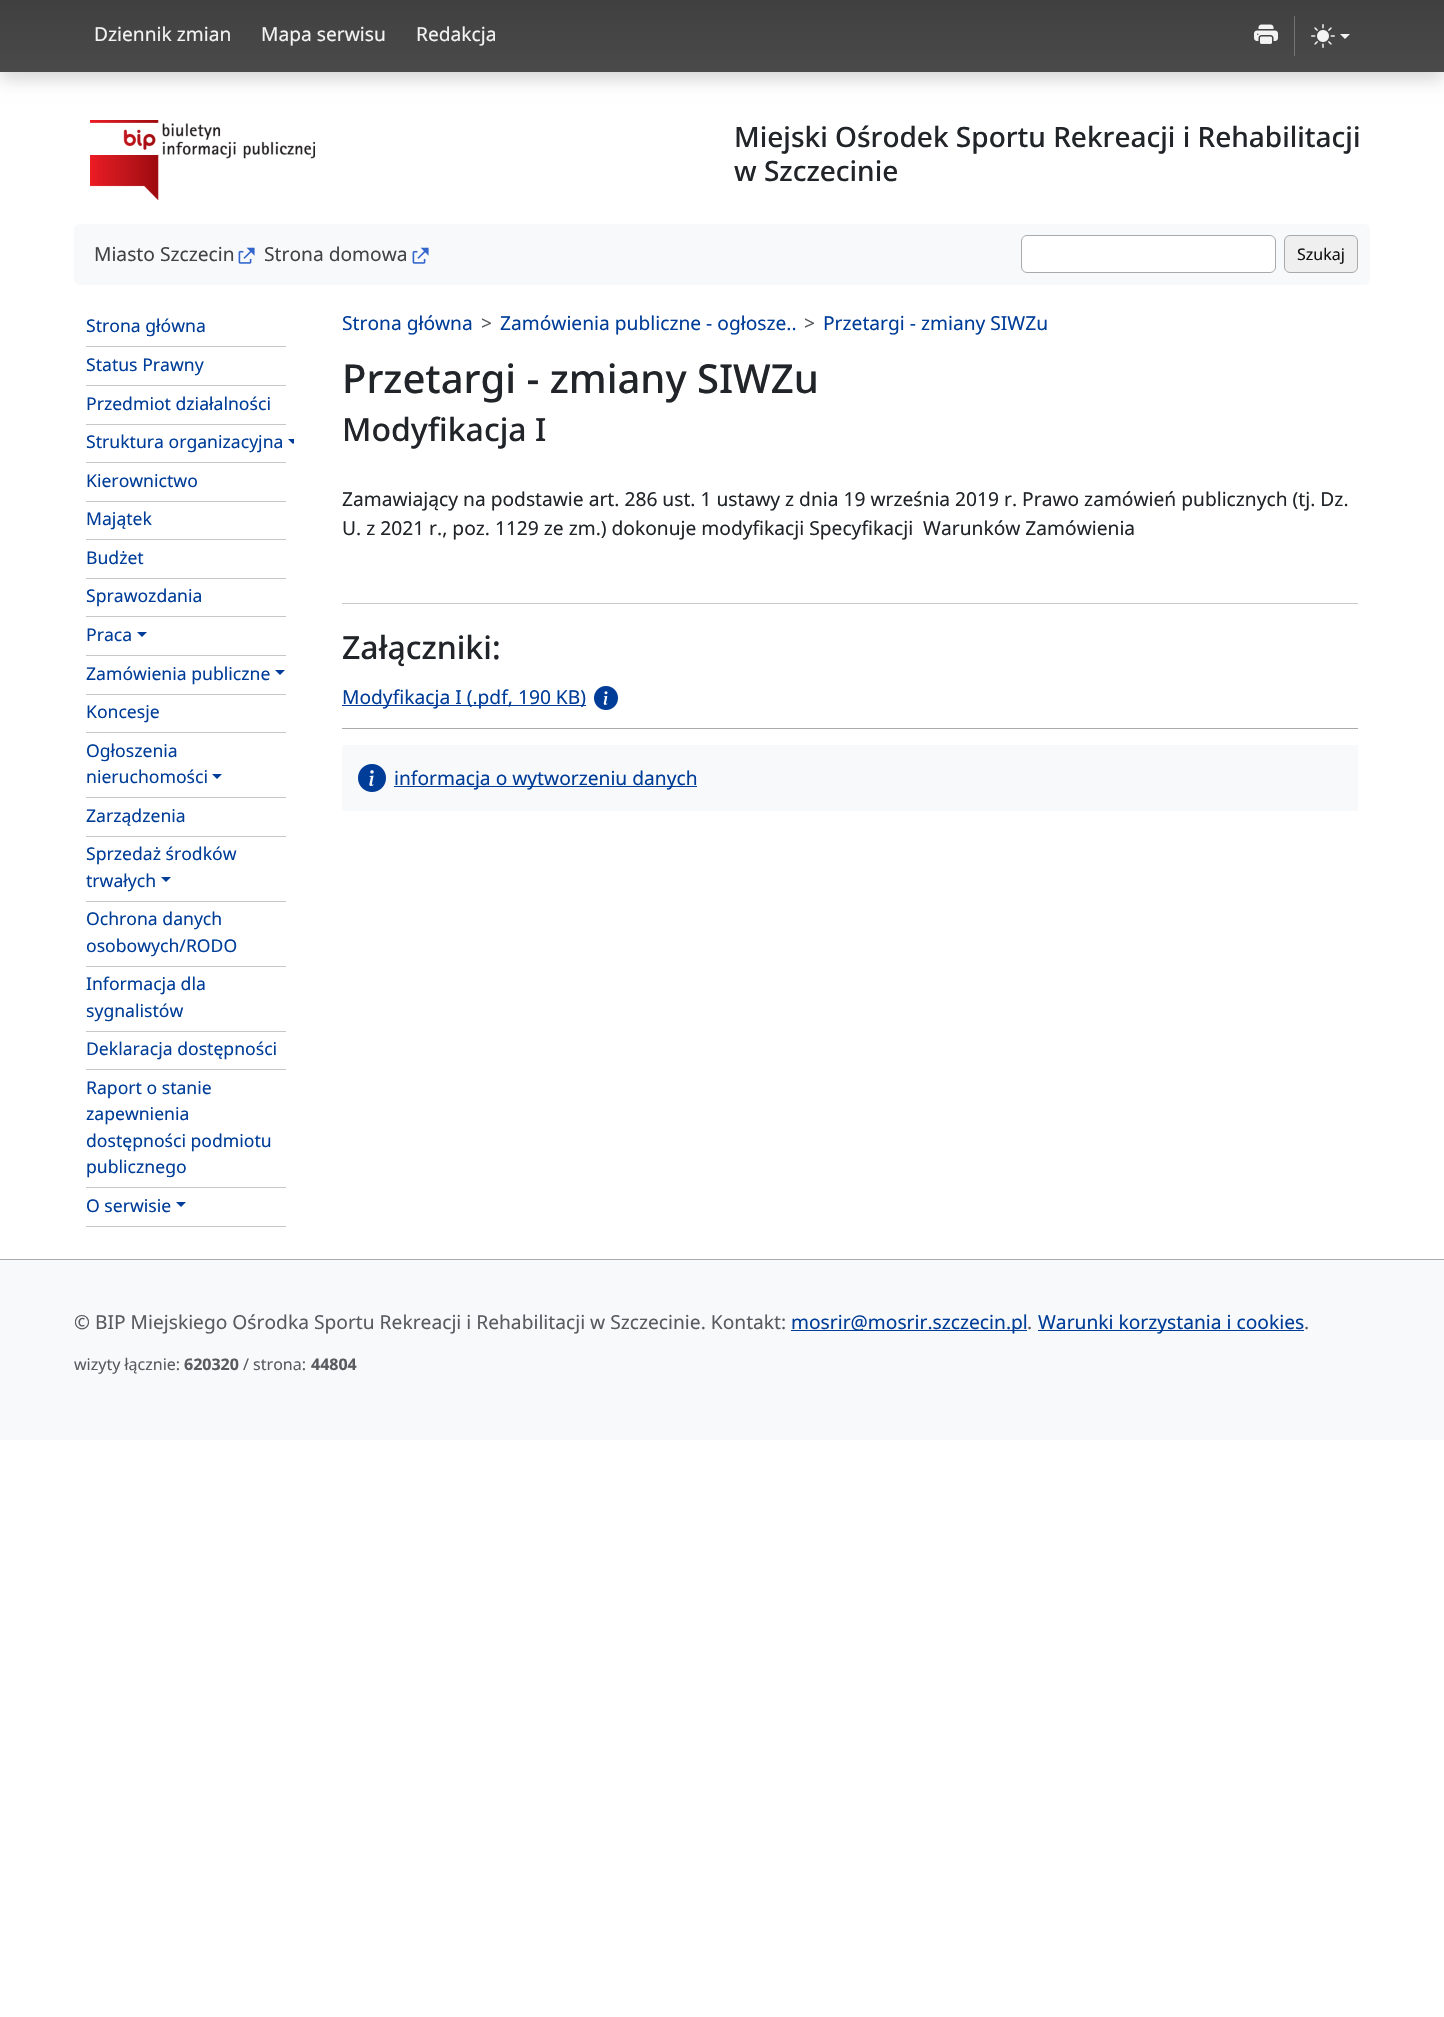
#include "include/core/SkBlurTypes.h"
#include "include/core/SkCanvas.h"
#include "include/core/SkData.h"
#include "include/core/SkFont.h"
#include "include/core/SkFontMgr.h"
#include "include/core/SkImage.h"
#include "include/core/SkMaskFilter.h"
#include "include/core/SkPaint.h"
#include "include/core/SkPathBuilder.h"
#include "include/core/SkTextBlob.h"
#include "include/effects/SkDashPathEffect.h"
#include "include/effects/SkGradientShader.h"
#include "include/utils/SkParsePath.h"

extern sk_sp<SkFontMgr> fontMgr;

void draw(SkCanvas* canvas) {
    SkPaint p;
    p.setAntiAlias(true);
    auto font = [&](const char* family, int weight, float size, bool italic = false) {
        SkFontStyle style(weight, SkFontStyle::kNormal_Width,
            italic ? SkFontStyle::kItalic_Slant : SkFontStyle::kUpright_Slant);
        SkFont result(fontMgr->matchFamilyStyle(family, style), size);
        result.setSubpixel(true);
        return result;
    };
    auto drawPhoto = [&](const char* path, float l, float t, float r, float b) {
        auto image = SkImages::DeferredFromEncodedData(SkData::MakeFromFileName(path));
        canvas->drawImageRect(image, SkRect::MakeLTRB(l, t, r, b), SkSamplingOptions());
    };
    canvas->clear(0xFFFFFFFF);
    p.setColor(0x26000000);
    p.setMaskFilter(SkMaskFilter::MakeBlur(kNormal_SkBlurStyle, 8));
    canvas->drawRect(SkRect::MakeLTRB(0, 8, 1444, 80), p);
    p.setMaskFilter(nullptr);
    {
        const SkColor colors[] = {0xFF404040, 0xFF4A4A4A};
        const float stops[] = {0, 1};
        const SkPoint ends[] = {{722, 0}, {722, 72}};
        p.setShader(SkGradientShader::MakeLinear(ends, colors, stops, 2, SkTileMode::kClamp));
        p.setAlpha(255);
    }
    canvas->drawRect(SkRect::MakeLTRB(0, 0, 1444, 72), p);
    {
        const SkColor colors[] = {0xFF707070, 0xFF777777};
        const float stops[] = {0, 1};
        const SkPoint ends[] = {{722, 0}, {722, 72}};
        p.setShader(SkGradientShader::MakeLinear(ends, colors, stops, 2, SkTileMode::kClamp));
        p.setAlpha(255);
    }
    canvas->drawRect(SkRect::MakeLTRB(1294, 16, 1295, 56), p);
    auto font1 = font("Noto Sans", 400, 19.2f);
    p.setShader(nullptr);
    p.setColor(0xFFF3F3F3);
    {
        const struct { const char* s; float x, y; } items[] = {
            {"Dziennik zmian", 94, 41},
            {"Mapa serwisu", 261, 41},
            {"Redakcja", 416, 41},
        };
        for (auto [s, x, y] : items) {
            canvas->drawString(s, x, y, font1, p);
        }
    }
    drawPhoto("media/1.png", 1254, 24, 1278, 44);
    drawPhoto("media/2.png", 1311, 24, 1335, 48);
    canvas->drawPath(SkPathBuilder().moveTo(1340, 34).lineTo(1350, 34).lineTo(1345, 39).close().detach(), p);
    drawPhoto("media/3.png", 90, 120, 315, 200);
    auto font2 = font("Noto Sans", 500, 28);
    p.setColor(0xFF212529);
    canvas->drawString("Miejski Ośrodek Sportu Rekreacji i Rehabilitacji", 734, 147, font2, p);
    canvas->drawString("w Szczecinie", 734, 181, font2, p);
    p.setColor(0xFFF8F9FA);
    canvas->drawRoundRect(SkRect::MakeLTRB(74, 224, 1370, 285), 6, 6, p);
    p.setColor(0xFF444444);
    canvas->drawString("Miasto Szczecin", 94, 261, font1, p);
    drawPhoto("media/4.png", 238, 247, 255, 264);
    canvas->drawString("Strona domowa", 264, 261, font1, p);
    drawPhoto("media/4.png", 412, 247, 429, 264);
    p.setColor(0xFFFFFFFF);
    canvas->drawRoundRect(SkRect::MakeLTRB(1021.5f, 235.5f, 1275.5f, 272.5f), 5.5f, 5.5f, p);
    p.setStyle(SkPaint::kStroke_Style);
    p.setStrokeWidth(1);
    p.setColor(0xFFAAAAAA);
    canvas->drawRoundRect(SkRect::MakeLTRB(1021.5f, 235.5f, 1275.5f, 272.5f), 5.5f, 5.5f, p);
    p.setStyle(SkPaint::kFill_Style);
    p.setColor(0xFFEFEFEF);
    canvas->drawRoundRect(SkRect::MakeLTRB(1284.5f, 235.5f, 1357.5f, 272.5f), 5.5f, 5.5f, p);
    p.setStyle(SkPaint::kStroke_Style);
    p.setColor(0xFFAAAAAA);
    canvas->drawRoundRect(SkRect::MakeLTRB(1284.5f, 235.5f, 1357.5f, 272.5f), 5.5f, 5.5f, p);
    auto font3 = font("Noto Sans", 400, 16);
    p.setStyle(SkPaint::kFill_Style);
    p.setColor(0xFF111111);
    canvas->drawString("Szukaj", 1297, 260, font3, p);
    p.setColor(0xFFC4C8CB);
    canvas->drawRect(SkRect::MakeLTRB(86, 346, 286, 347), p);
    auto font4 = font("Noto Sans", 400, 17.6f);
    p.setColor(0xFF003D98);
    canvas->drawString("Strona główna", 86, 332, font4, p);
    p.setColor(0xFFC4C8CB);
    canvas->drawRect(SkRect::MakeLTRB(86, 385, 286, 386), p);
    p.setColor(0xFF003D98);
    canvas->drawString("Status Prawny", 86, 371, font4, p);
    p.setColor(0xFFC4C8CB);
    canvas->drawRect(SkRect::MakeLTRB(86, 424, 286, 425), p);
    p.setColor(0xFF003D98);
    canvas->drawString("Przedmiot działalności", 86, 410, font4, p);
    p.setColor(0xFFC4C8CB);
    canvas->drawRect(SkRect::MakeLTRB(86, 462, 286, 463), p);
    p.setColor(0xFF003D98);
    canvas->drawString("Struktura organizacyjna", 86, 448, font4, p);
    canvas->save();
    canvas->clipRect(SkRect::MakeLTRB(82, 309, 294, 1235));
    canvas->drawPath(SkPathBuilder().moveTo(288, 439).lineTo(298, 439).lineTo(293, 444).close().detach(), p);
    canvas->restore();
    p.setColor(0xFFC4C8CB);
    canvas->drawRect(SkRect::MakeLTRB(86, 501, 286, 502), p);
    p.setColor(0xFF003D98);
    canvas->drawString("Kierownictwo", 86, 487, font4, p);
    p.setColor(0xFFC4C8CB);
    canvas->drawRect(SkRect::MakeLTRB(86, 539, 286, 540), p);
    p.setColor(0xFF003D98);
    canvas->drawString("Majątek", 86, 525, font4, p);
    p.setColor(0xFFC4C8CB);
    canvas->drawRect(SkRect::MakeLTRB(86, 578, 286, 579), p);
    p.setColor(0xFF003D98);
    canvas->drawString("Budżet", 86, 564, font4, p);
    p.setColor(0xFFC4C8CB);
    canvas->drawRect(SkRect::MakeLTRB(86, 616, 286, 617), p);
    p.setColor(0xFF003D98);
    canvas->drawString("Sprawozdania", 86, 602, font4, p);
    p.setColor(0xFFC4C8CB);
    canvas->drawRect(SkRect::MakeLTRB(86, 655, 286, 656), p);
    p.setColor(0xFF003D98);
    canvas->drawString("Praca", 86, 641, font4, p);
    canvas->drawPath(SkPathBuilder().moveTo(137, 632).lineTo(147, 632).lineTo(142, 637).close().detach(), p);
    p.setColor(0xFFC4C8CB);
    canvas->drawRect(SkRect::MakeLTRB(86, 694, 286, 695), p);
    p.setColor(0xFF003D98);
    canvas->drawString("Zamówienia publiczne", 86, 680, font4, p);
    canvas->drawPath(SkPathBuilder().moveTo(275, 670).lineTo(285, 670).lineTo(280, 675).close().detach(), p);
    p.setColor(0xFFC4C8CB);
    canvas->drawRect(SkRect::MakeLTRB(86, 732, 286, 733), p);
    p.setColor(0xFF003D98);
    canvas->drawString("Koncesje", 86, 718, font4, p);
    p.setColor(0xFFC4C8CB);
    canvas->drawRect(SkRect::MakeLTRB(86, 797, 286, 798), p);
    p.setColor(0xFF003D98);
    canvas->drawString("Ogłoszenia", 86, 757, font4, p);
    canvas->drawString("nieruchomości", 86, 783, font4, p);
    canvas->drawPath(SkPathBuilder().moveTo(212, 774).lineTo(222, 774).lineTo(217, 779).close().detach(), p);
    p.setColor(0xFFC4C8CB);
    canvas->drawRect(SkRect::MakeLTRB(86, 836, 286, 837), p);
    p.setColor(0xFF003D98);
    canvas->drawString("Zarządzenia", 86, 822, font4, p);
    p.setColor(0xFFC4C8CB);
    canvas->drawRect(SkRect::MakeLTRB(86, 901, 286, 902), p);
    p.setColor(0xFF003D98);
    canvas->drawString("Sprzedaż środków", 86, 860, font4, p);
    canvas->drawString("trwałych", 86, 887, font4, p);
    canvas->drawPath(SkPathBuilder().moveTo(161, 877).lineTo(171, 877).lineTo(166, 882).close().detach(), p);
    p.setColor(0xFFC4C8CB);
    canvas->drawRect(SkRect::MakeLTRB(86, 966, 286, 967), p);
    p.setColor(0xFF003D98);
    canvas->drawString("Ochrona danych", 86, 925, font4, p);
    canvas->drawString("osobowych/RODO", 86, 952, font4, p);
    p.setColor(0xFFC4C8CB);
    canvas->drawRect(SkRect::MakeLTRB(86, 1031, 286, 1032), p);
    p.setColor(0xFF003D98);
    canvas->drawString("Informacja dla", 86, 990, font4, p);
    canvas->drawString("sygnalistów", 86, 1017, font4, p);
    p.setColor(0xFFC4C8CB);
    canvas->drawRect(SkRect::MakeLTRB(86, 1069, 286, 1070), p);
    p.setColor(0xFF003D98);
    canvas->drawString("Deklaracja dostępności", 86, 1055, font4, p);
    p.setColor(0xFFC4C8CB);
    canvas->drawRect(SkRect::MakeLTRB(86, 1187, 286, 1188), p);
    p.setColor(0xFF003D98);
    {
        const struct { const char* s; float x, y; } items[] = {
            {"Raport o stanie", 86, 1094},
            {"zapewnienia", 86, 1120},
            {"dostępności podmiotu", 86, 1147},
            {"publicznego", 86, 1173},
        };
        for (auto [s, x, y] : items) {
            canvas->drawString(s, x, y, font4, p);
        }
    }
    p.setColor(0xFFC4C8CB);
    canvas->drawRect(SkRect::MakeLTRB(86, 1226, 286, 1227), p);
    p.setColor(0xFF003D98);
    canvas->drawString("O serwisie", 86, 1212, font4, p);
    canvas->drawPath(SkPathBuilder().moveTo(176, 1202).lineTo(186, 1202).lineTo(181, 1207).close().detach(), p);
    canvas->drawString("Strona główna", 342, 330, font1, p);
    p.setColor(0xFF595C5F);
    canvas->drawString(">", 481, 330, font1, p);
    p.setColor(0xFF003D98);
    canvas->drawString("Zamówienia publiczne - ogłosze..", 500, 330, font1, p);
    p.setColor(0xFF595C5F);
    canvas->drawString(">", 804, 330, font1, p);
    p.setColor(0xFF003D98);
    canvas->drawString("Przetargi - zmiany SIWZu", 823, 330, font1, p);
    auto font5 = font("Noto Sans", 500, 40);
    p.setColor(0xFF212529);
    canvas->drawString("Przetargi - zmiany SIWZu", 342, 393, font5, p);
    auto font6 = font("Noto Sans", 500, 32);
    canvas->drawString("Modyfikacja I", 342, 441, font6, p);
    canvas->drawString("Zamawiający na podstawie art. 286 ust. 1 ustawy z dnia 19 września 2019 r. Prawo zamówień publicznych (tj. Dz.", 342, 506, font1, p);
    canvas->drawString("U. z 2021 r., poz. 1129 ze zm.) dokonuje modyfikacji Specyfikacji  Warunków Zamówienia", 342, 535, font1, p);
    p.setColor(0xFFC8C9CA);
    canvas->drawRect(SkRect::MakeLTRB(342, 603, 1358, 604), p);
    p.setColor(0xFF212529);
    canvas->drawString("Załączniki:", 342, 659, font6, p);
    p.setColor(0xFFAAAAAA);
    canvas->drawRect(SkRect::MakeLTRB(342, 728, 1358, 729), p);
    p.setColor(0xFF003D98);
    canvas->drawRect(SkRect::MakeLTRB(342, 705, 586, 706), p);
    canvas->drawString("Modyfikacja I (.pdf, 190 KB)", 342, 704, font1, p);
    drawPhoto("media/5.png", 594, 686, 618, 710);
    p.setColor(0xFFF8F9FA);
    canvas->drawRect(SkRect::MakeLTRB(342, 745, 1358, 811), p);
    drawPhoto("media/6.png", 358, 764, 386, 792);
    p.setColor(0xFF003D98);
    canvas->drawRect(SkRect::MakeLTRB(394, 786, 697, 787), p);
    canvas->drawString("informacja o wytworzeniu danych", 394, 785, font1, p);
    p.setColor(0xFFF8F9FA);
    canvas->drawRect(SkRect::MakeLTRB(0, 1260, 1444, 1440), p);
    p.setColor(0xFFAAAAAA);
    canvas->drawRect(SkRect::MakeLTRB(0, 1259, 1444, 1260), p);
    p.setColor(0xFF595C5F);
    canvas->drawString("© BIP Miejskiego Ośrodka Sportu Rekreacji i Rehabilitacji w Szczecinie. Kontakt:", 74, 1329, font1, p);
    p.setColor(0xFF003D98);
    canvas->drawRect(SkRect::MakeLTRB(791, 1330, 1027, 1331), p);
    canvas->drawString("mosrir@mosrir.szczecin.pl", 791, 1329, font1, p);
    p.setColor(0xFF595C5F);
    canvas->drawString(".", 1027, 1329, font1, p);
    p.setColor(0xFF003D98);
    canvas->drawRect(SkRect::MakeLTRB(1038, 1330, 1304, 1331), p);
    canvas->drawString("Warunki korzystania i cookies", 1038, 1329, font1, p);
    p.setColor(0xFF595C5F);
    canvas->drawString(".", 1304, 1329, font1, p);
    canvas->drawString("wizyty łącznie:", 74, 1370, font3, p);
    auto font7 = font("Noto Sans", 700, 16);
    canvas->drawString("620320", 184, 1370, font7, p);
    canvas->drawString("/ strona:", 243, 1370, font3, p);
    canvas->drawString("44804", 311, 1370, font7, p);
}
